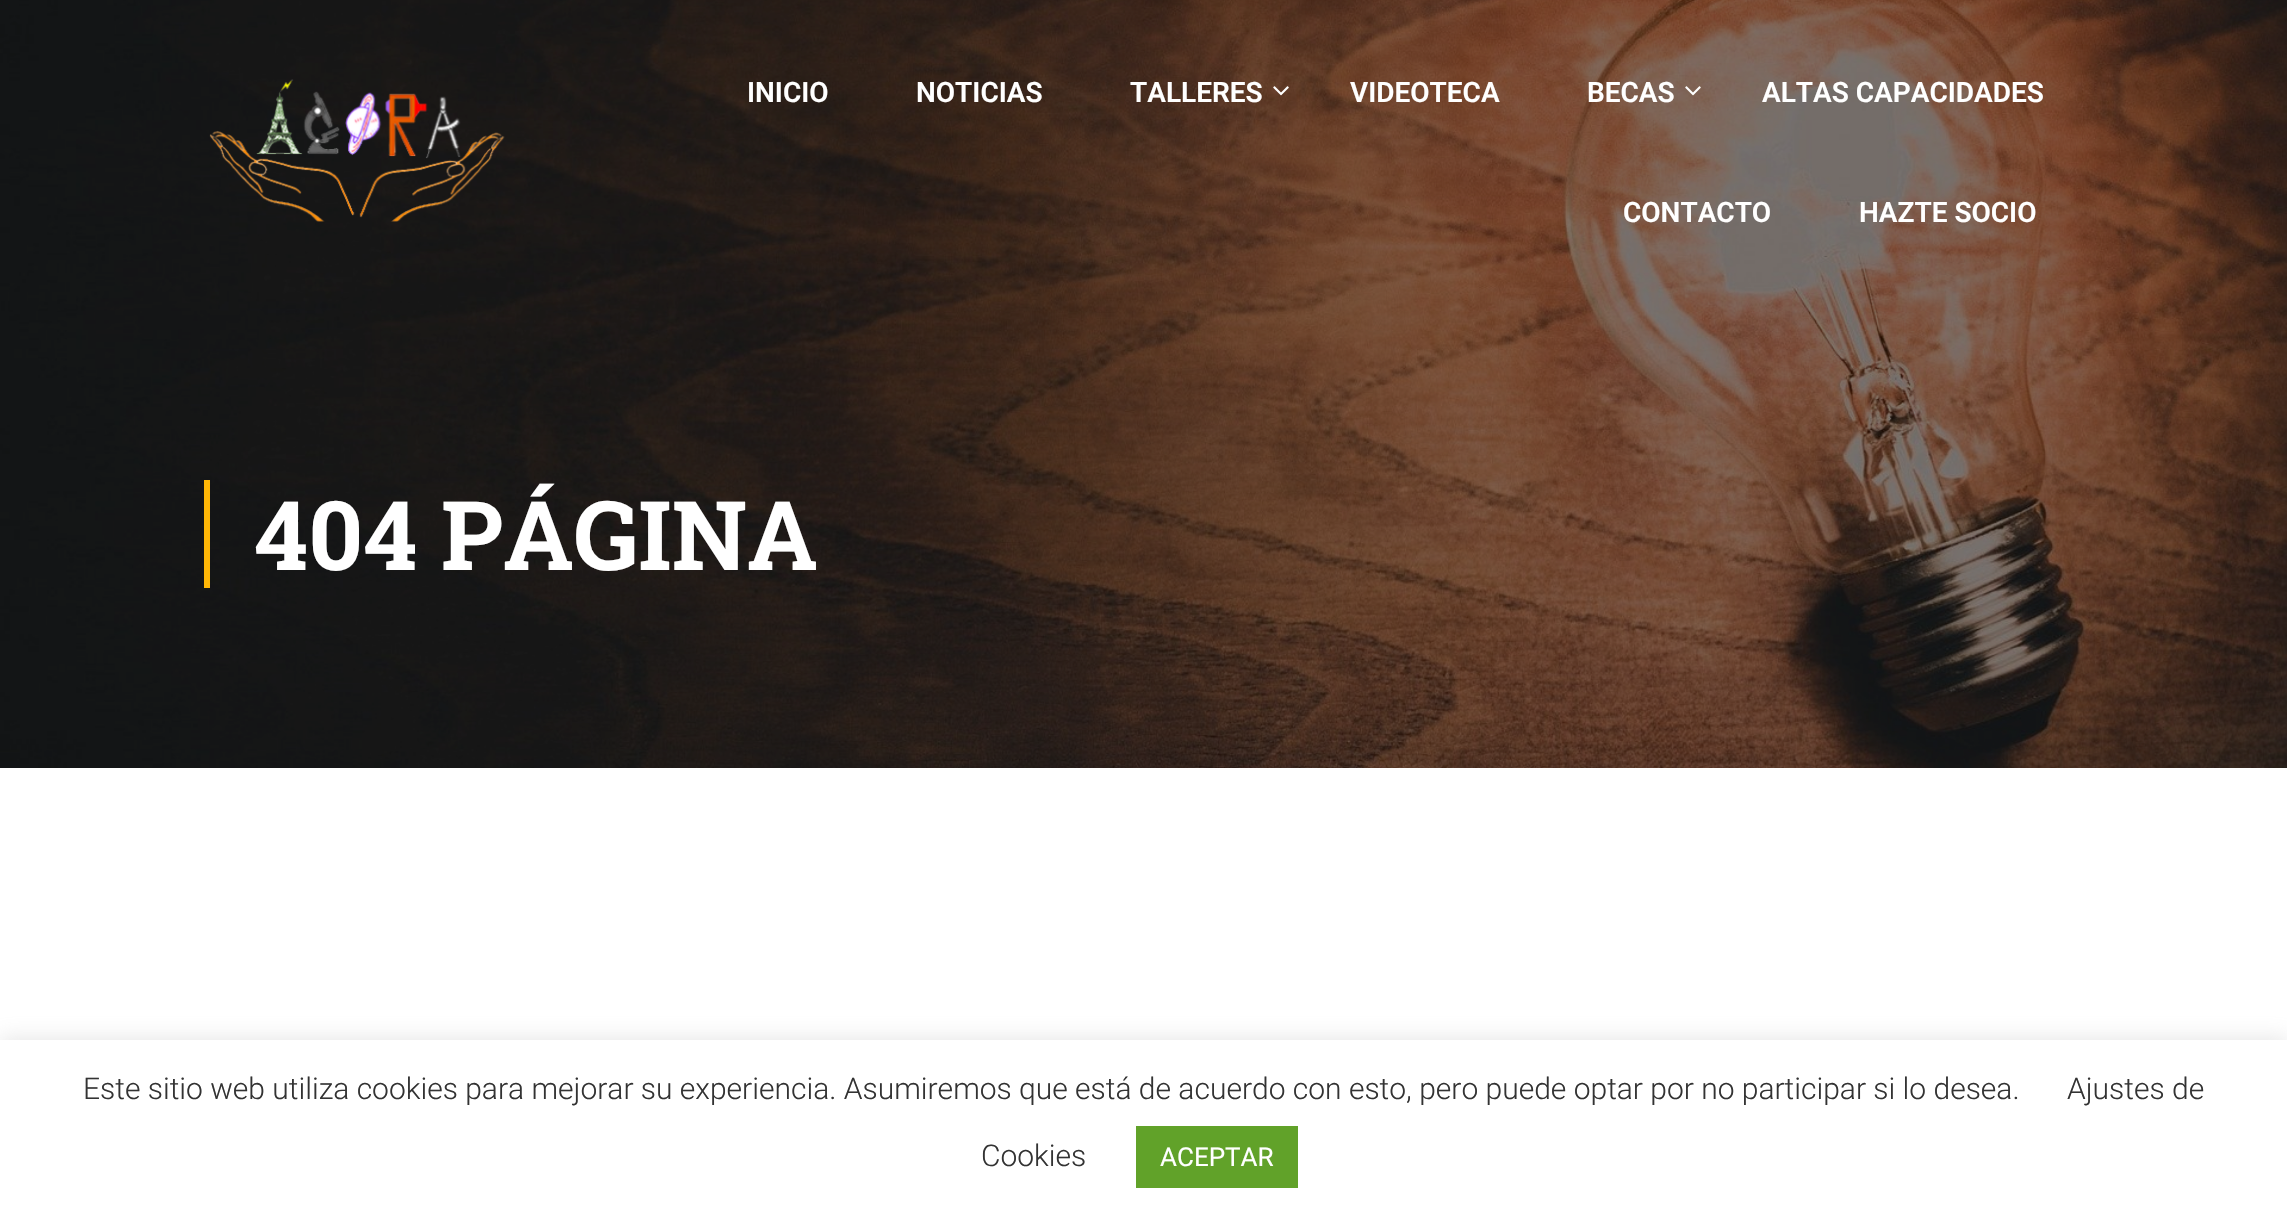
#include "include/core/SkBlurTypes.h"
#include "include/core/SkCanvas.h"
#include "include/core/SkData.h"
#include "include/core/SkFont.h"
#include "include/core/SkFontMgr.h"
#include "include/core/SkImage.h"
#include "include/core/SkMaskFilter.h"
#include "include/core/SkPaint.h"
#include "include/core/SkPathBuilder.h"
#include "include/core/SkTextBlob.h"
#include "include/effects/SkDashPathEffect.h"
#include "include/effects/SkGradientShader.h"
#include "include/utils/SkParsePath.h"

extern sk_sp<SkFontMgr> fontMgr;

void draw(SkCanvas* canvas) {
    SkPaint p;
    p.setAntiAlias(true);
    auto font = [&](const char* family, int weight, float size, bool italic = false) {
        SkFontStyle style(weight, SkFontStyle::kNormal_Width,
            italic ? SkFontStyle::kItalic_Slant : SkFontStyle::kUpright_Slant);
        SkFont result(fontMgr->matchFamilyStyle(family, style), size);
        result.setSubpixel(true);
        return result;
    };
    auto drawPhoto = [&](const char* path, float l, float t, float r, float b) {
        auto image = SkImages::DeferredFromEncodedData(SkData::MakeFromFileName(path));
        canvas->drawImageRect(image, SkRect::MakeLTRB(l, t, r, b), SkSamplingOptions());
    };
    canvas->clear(0xFFFFFFFF);
    drawPhoto("media/4.png", 0, 0, 2287, 768);
    drawPhoto("media/1.png", 209, 79, 505, 222);
    auto font1 = font("Roboto", 600, 28);
    p.setColor(0xFFFFFFFF);
    {
        const struct { const char* s; float x, y; } items[] = {
            {"INICIO", 747, 102},
            {"NOTICIAS", 916, 102},
            {"TALLERES", 1130, 102},
        };
        for (auto [s, x, y] : items) {
            canvas->drawString(s, x, y, font1, p);
        }
    }
    drawPhoto("media/2.png", 1273, 86, 1289, 96);
    canvas->drawString("VIDEOTECA", 1350, 102, font1, p);
    canvas->drawString("BECAS", 1587, 102, font1, p);
    drawPhoto("media/3.png", 1685, 86, 1701, 96);
    {
        const struct { const char* s; float x, y; } items[] = {
            {"ALTAS CAPACIDADES", 1762, 102},
            {"CONTACTO", 1623, 222},
            {"HAZTE SOCIO", 1859, 222},
        };
        for (auto [s, x, y] : items) {
            canvas->drawString(s, x, y, font1, p);
        }
    }
    p.setColor(0xFFFFB606);
    canvas->drawRect(SkRect::MakeLTRB(204, 480, 210, 588), p);
    auto font2 = font("Roboto Slab", 700, 96);
    p.setColor(0xFFFFFFFF);
    canvas->drawString("404 PÁGINA", 254, 570, font2, p);
    p.setColor(0x4DACABAB);
    p.setMaskFilter(SkMaskFilter::MakeBlur(kNormal_SkBlurStyle, 10));
    canvas->drawRect(SkRect::MakeLTRB(0, 1038, 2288, 1220), p);
    p.setMaskFilter(nullptr);
    p.setColor(0xFFFFFFFF);
    canvas->drawRect(SkRect::MakeLTRB(0, 1040, 2287, 1221), p);
    auto font3 = font("Roboto", 300, 30);
    p.setColor(0xFF333333);
    {
        const struct { const char* s; float x, y; } items[] = {
            {"Este sitio web utiliza cookies para mejorar su experiencia. Asumiremos que está de acuerdo con esto, pero puede optar por no participar si lo desea.", 83, 1099},
            {"Ajustes de", 2067, 1099},
            {"Cookies", 981, 1166},
        };
        for (auto [s, x, y] : items) {
            canvas->drawString(s, x, y, font3, p);
        }
    }
    p.setColor(0xFF61A229);
    canvas->drawRect(SkRect::MakeLTRB(1136, 1126, 1298, 1188), p);
    auto font4 = font("Roboto", 400, 26);
    p.setColor(0xFFFFFFFF);
    canvas->drawString("ACEPTAR", 1160, 1166, font4, p);
}
